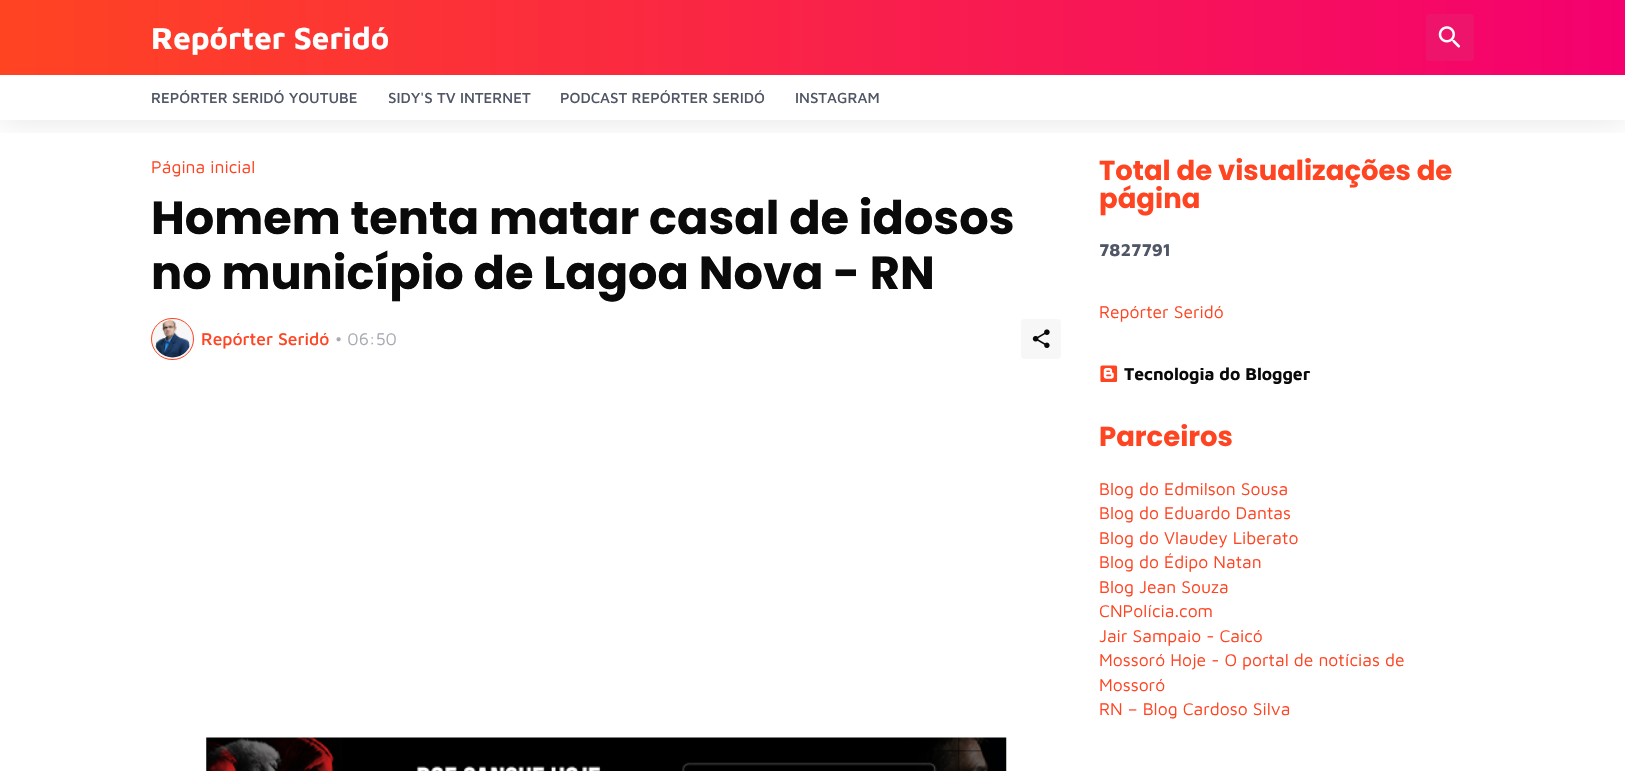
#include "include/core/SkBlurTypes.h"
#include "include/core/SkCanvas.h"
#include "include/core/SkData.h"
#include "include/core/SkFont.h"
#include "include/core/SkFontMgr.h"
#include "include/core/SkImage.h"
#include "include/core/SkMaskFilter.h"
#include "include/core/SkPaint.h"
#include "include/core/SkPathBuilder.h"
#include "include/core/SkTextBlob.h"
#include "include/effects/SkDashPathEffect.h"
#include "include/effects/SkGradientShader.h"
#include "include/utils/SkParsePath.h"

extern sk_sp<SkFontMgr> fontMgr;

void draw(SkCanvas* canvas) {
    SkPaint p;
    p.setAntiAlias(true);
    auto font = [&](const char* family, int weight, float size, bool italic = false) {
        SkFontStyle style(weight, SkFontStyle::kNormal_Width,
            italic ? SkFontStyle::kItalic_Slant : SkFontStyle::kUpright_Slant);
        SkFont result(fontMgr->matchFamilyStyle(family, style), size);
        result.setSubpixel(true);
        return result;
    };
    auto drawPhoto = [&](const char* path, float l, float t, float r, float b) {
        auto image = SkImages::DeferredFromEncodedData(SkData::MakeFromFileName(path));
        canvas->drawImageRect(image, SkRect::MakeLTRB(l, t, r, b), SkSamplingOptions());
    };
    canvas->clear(0xFFFFFFFF);
    canvas->save();
    canvas->clipRect(SkRect::MakeLTRB(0, 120, 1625, 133));
    p.setColor(0x1A000000);
    p.setMaskFilter(SkMaskFilter::MakeBlur(kNormal_SkBlurStyle, 15.5f));
    canvas->drawRect(SkRect::MakeLTRB(0, 0, 1625, 120), p);
    p.setMaskFilter(nullptr);
    canvas->restore();
    {
        const SkColor colors[] = {0xFFFF4422, 0xFFF4006F};
        const float stops[] = {0, 1};
        const SkPoint ends[] = {{0, 38}, {1625, 37}};
        p.setShader(SkGradientShader::MakeLinear(ends, colors, stops, 2, SkTileMode::kClamp));
        p.setAlpha(255);
    }
    canvas->drawRect(SkRect::MakeLTRB(0, 0, 1625, 75), p);
    auto font1 = font("Maven Pro", 700, 31.25f);
    p.setShader(nullptr);
    p.setColor(0xFFFFFFFF);
    canvas->drawString("Repórter Seridó", 151, 49, font1, p);
    p.setColor(0xFFEE136B);
    canvas->drawRoundRect(SkRect::MakeLTRB(1426, 14, 1474, 61), 4, 4, p);
    drawPhoto("media/1.png", 1438, 26, 1460, 48);
    auto font2 = font("Maven Pro", 500, 15);
    p.setColor(0xFF505666);
    {
        const struct { const char* s; float x, y; } items[] = {
            {"REPÓRTER SERIDÓ YOUTUBE", 151, 103},
            {"SIDY'S TV INTERNET", 388, 103},
            {"PODCAST REPÓRTER SERIDÓ", 560, 103},
            {"INSTAGRAM", 795, 103},
        };
        for (auto [s, x, y] : items) {
            canvas->drawString(s, x, y, font2, p);
        }
    }
    auto font3 = font("Maven Pro", 400, 17.5f);
    p.setColor(0xFFFF4422);
    canvas->drawString("Página inicial", 151, 173, font3, p);
    auto font4 = font("Poppins", 700, 46.25f);
    p.setColor(0xFF0A0A0A);
    canvas->drawString("Homem tenta matar casal de idosos", 151, 234, font4, p);
    canvas->drawString("no município de Lagoa Nova - RN", 151, 289, font4, p);
    p.setColor(0xFFF7F7F7);
    canvas->drawRoundRect(SkRect::MakeLTRB(151.5f, 318.5f, 193.5f, 359.5f), 20.5f, 20.5f, p);
    p.setStyle(SkPaint::kStroke_Style);
    p.setStrokeWidth(1);
    p.setColor(0xFFFF4422);
    canvas->drawRoundRect(SkRect::MakeLTRB(151.5f, 318.5f, 193.5f, 359.5f), 20.5f, 20.5f, p);
    drawPhoto("media/2.png", 155, 320, 190, 358);
    auto font5 = font("Maven Pro", 500, 17.5f);
    p.setStyle(SkPaint::kFill_Style);
    canvas->drawString("Repórter Seridó", 201, 345, font5, p);
    p.setColor(0xFFA7AAB2);
    canvas->drawString("• 06:50", 335, 345, font3, p);
    p.setColor(0xFFF7F7F7);
    canvas->drawRoundRect(SkRect::MakeLTRB(1021, 319, 1061, 359), 4, 4, p);
    drawPhoto("media/3.png", 1032, 329, 1050, 348);
    drawPhoto("media/4.png", 206, 737, 1007, 771);
    auto font6 = font("Poppins", 700, 27.5f);
    p.setColor(0xFFFF4422);
    canvas->drawString("Total de visualizações de", 1099, 180, font6, p);
    canvas->drawString("página", 1099, 208, font6, p);
    auto font7 = font("Maven Pro", 700, 17.5f);
    p.setColor(0xFF505666);
    canvas->drawString("7827791", 1099, 256, font7, p);
    p.setColor(0xFFFF4422);
    canvas->drawString("Repórter Seridó", 1099, 318, font3, p);
    drawPhoto("media/5.png", 1100, 365, 1118, 382);
    p.setColor(0xFF0A0A0A);
    canvas->drawString("Tecnologia do Blogger", 1124, 380, font7, p);
    p.setColor(0xFFFF4422);
    canvas->drawString("Parceiros", 1099, 446, font6, p);
    {
        const struct { const char* s; float x, y; } items[] = {
            {"Blog do Edmilson Sousa", 1099, 495},
            {"Blog do Eduardo Dantas", 1099, 519},
            {"Blog do Vlaudey Liberato", 1099, 544},
            {"Blog do Édipo Natan", 1099, 568},
            {"Blog Jean Souza", 1099, 593},
            {"CNPolícia.com", 1099, 617},
            {"Jair Sampaio - Caicó", 1099, 642},
            {"Mossoró Hoje - O portal de notícias de", 1099, 666},
            {"Mossoró", 1099, 691},
            {"RN – Blog Cardoso Silva", 1099, 715},
        };
        for (auto [s, x, y] : items) {
            canvas->drawString(s, x, y, font3, p);
        }
    }
}
